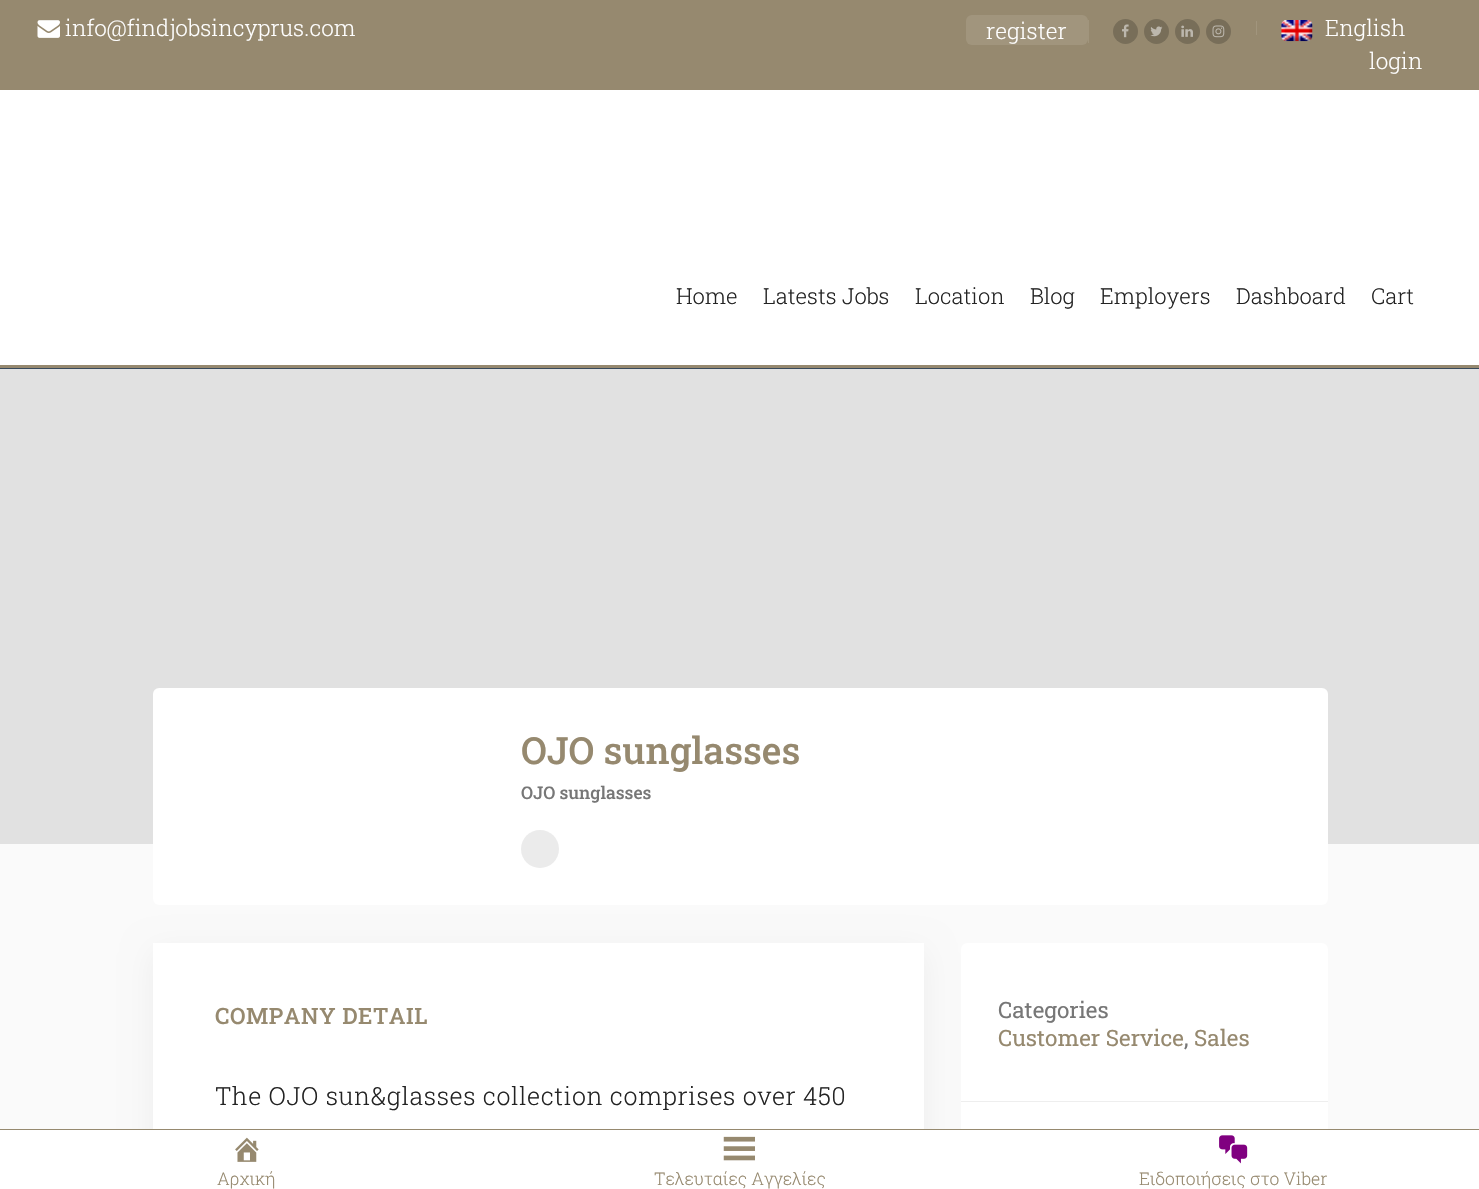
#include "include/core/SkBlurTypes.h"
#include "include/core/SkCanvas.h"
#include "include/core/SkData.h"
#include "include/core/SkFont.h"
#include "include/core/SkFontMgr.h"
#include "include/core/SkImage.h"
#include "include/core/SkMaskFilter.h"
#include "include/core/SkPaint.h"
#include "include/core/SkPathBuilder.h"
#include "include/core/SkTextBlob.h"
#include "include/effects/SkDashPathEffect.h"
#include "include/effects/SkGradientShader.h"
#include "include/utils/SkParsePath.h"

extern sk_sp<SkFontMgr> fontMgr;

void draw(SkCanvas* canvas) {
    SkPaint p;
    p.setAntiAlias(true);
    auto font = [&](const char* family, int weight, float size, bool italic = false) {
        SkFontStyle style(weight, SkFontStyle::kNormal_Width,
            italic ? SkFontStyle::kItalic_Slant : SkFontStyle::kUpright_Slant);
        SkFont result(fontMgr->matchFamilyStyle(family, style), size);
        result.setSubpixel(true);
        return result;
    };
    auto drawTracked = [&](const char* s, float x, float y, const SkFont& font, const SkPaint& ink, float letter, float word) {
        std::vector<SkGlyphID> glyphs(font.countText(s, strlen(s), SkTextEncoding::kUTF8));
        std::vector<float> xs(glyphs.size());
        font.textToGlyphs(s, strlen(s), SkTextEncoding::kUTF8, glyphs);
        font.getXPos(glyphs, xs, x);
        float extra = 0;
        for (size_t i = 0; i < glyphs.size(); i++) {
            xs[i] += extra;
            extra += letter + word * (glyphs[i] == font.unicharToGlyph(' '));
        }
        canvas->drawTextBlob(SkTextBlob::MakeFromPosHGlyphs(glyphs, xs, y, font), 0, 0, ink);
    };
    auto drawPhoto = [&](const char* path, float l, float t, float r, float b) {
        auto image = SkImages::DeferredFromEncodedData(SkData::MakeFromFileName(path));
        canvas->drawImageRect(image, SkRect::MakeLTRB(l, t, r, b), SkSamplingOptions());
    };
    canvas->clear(0xFF384A5C);
    p.setColor(0xFF96896F);
    canvas->drawRect(SkRect::MakeLTRB(0, 0, 1479, 90), p);
    drawPhoto("media/1.png", 37, 20, 60, 38);
    auto font1 = font("Roboto Slab", 300, 22.5f);
    p.setColor(0xFFFFFFFF);
    canvas->drawString("info@findjobsincyprus.com", 65, 36, font1, p);
    p.setColor(0xFFA1957D);
    canvas->drawRect(SkRect::MakeLTRB(1088, 20, 1089, 43), p);
    p.setColor(0xFF786E59);
    canvas->drawCircle(1125.5f, 31.5f, 12.5f, p);
    drawPhoto("media/2.png", 1122, 24, 1129, 38);
    canvas->drawCircle(1156.5f, 31.5f, 12.5f, p);
    drawPhoto("media/3.png", 1150, 26, 1163, 37);
    canvas->drawCircle(1187.5f, 31.5f, 12.5f, p);
    drawPhoto("media/4.png", 1181, 25, 1193, 37);
    canvas->drawCircle(1218.5f, 31.5f, 12.5f, p);
    drawPhoto("media/5.png", 1212, 25, 1225, 38);
    p.setColor(0xFFA1957D);
    canvas->drawRect(SkRect::MakeLTRB(1256, 21, 1257, 35), p);
    drawPhoto("media/6.png", 1281, 20, 1313, 42);
    p.setColor(0xFFFFFFFF);
    canvas->drawString("English", 1325, 36, font1, p);
    p.setColor(0xFFA1957D);
    canvas->drawRoundRect(SkRect::MakeLTRB(966, 15, 1088, 45), 6, 6, p);
    p.setColor(0xFFFFFFFF);
    canvas->drawString("register", 986, 39, font1, p);
    canvas->drawString("login", 1369, 69, font1, p);
    p.setColor(0xFF96896F);
    canvas->drawRect(SkRect::MakeLTRB(0, 365, 1479, 368), p);
    p.setColor(0xFFFFFFFF);
    canvas->drawRect(SkRect::MakeLTRB(0, 90, 1479, 365), p);
    auto font2 = font("Roboto Slab", 300, 22);
    p.setColor(0xFF232323);
    {
        const struct { const char* s; float x, y; } items[] = {
            {"Home", 676, 304},
            {"Latests Jobs", 763, 304},
            {"Location", 915, 304},
            {"Blog", 1030, 304},
            {"Employers", 1100, 304},
            {"Dashboard", 1236, 304},
            {"Cart", 1371, 304},
        };
        for (auto [s, x, y] : items) {
            canvas->drawString(s, x, y, font2, p);
        }
    }
    p.setColor(0xFFE1E1E1);
    canvas->drawRect(SkRect::MakeLTRB(0, 369, 1479, 844), p);
    p.setColor(0xFFFAFAFA);
    canvas->drawRect(SkRect::MakeLTRB(0, 844, 1479, 1129), p);
    p.setColor(0xFFFFFFFF);
    canvas->drawRoundRect(SkRect::MakeLTRB(153, 688, 1328, 905), 6, 6, p);
    auto font3 = font("Roboto Slab", 500, 37.5f);
    p.setColor(0xFF96896F);
    canvas->drawString("OJO sunglasses", 521, 764, font3, p);
    auto font4 = font("Roboto Slab", 500, 17.5f);
    p.setColor(0xFF777777);
    canvas->drawString("OJO sunglasses", 521, 799, font4, p);
    p.setColor(0xFFEBEBEB);
    canvas->drawCircle(540, 849, 19, p);
    p.setColor(0x0D000000);
    p.setMaskFilter(SkMaskFilter::MakeBlur(kNormal_SkBlurStyle, 15.5f));
    canvas->drawRoundRect(SkRect::MakeLTRB(153, 951, 924, 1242), 6, 6, p);
    p.setMaskFilter(nullptr);
    p.setColor(0xFFFFFFFF);
    canvas->drawRect(SkRect::MakeLTRB(153, 943, 924, 1129), p);
    auto font5 = font("Roboto Slab", 500, 22.5f);
    p.setColor(0xFF96896F);
    drawTracked("COMPANY DETAIL", 215, 1024, font5, p, 0.55f, 0);
    auto font6 = font("Roboto Slab", 300, 25);
    p.setColor(0xFF232323);
    drawTracked("The OJO sun&glasses collection comprises over 450", 215, 1105, font6, p, 0.55f, 0);
    p.setColor(0xFFFFFFFF);
    canvas->drawRoundRect(SkRect::MakeLTRB(961, 943, 1328, 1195), 6, 6, p);
    p.setColor(0xFFEEEEEE);
    canvas->drawRect(SkRect::MakeLTRB(961, 1101, 1328, 1102), p);
    auto font7 = font("Roboto Slab", 400, 22.5f);
    p.setColor(0xFF777777);
    canvas->drawString("Categories", 998, 1018, font7, p);
    p.setColor(0xFF96896F);
    canvas->drawString("Customer Service", 998, 1046, font7, p);
    p.setColor(0xFF777777);
    canvas->drawString(",", 1184, 1046, font7, p);
    p.setColor(0xFF96896F);
    canvas->drawString("Sales", 1194, 1046, font7, p);
    canvas->drawRect(SkRect::MakeLTRB(0, 1129, 1479, 1130), p);
    p.setColor(0xFFFFFFFF);
    canvas->drawRect(SkRect::MakeLTRB(0, 1130, 1479, 1189), p);
    drawPhoto("media/7.png", 235, 1137, 259, 1162);
    auto font8 = font("Roboto Slab", 300, 17.5f);
    p.setColor(0xFF96896F);
    canvas->drawString("Αρχική", 217, 1185, font8, p);
    drawPhoto("media/8.png", 723, 1136, 755, 1161);
    canvas->drawString("Τελευταίες Αγγελίες", 654, 1185, font8, p);
    drawPhoto("media/9.png", 1219, 1135, 1248, 1164);
    canvas->drawString("Ειδοποιήσεις στο Viber", 1139, 1185, font8, p);
}
